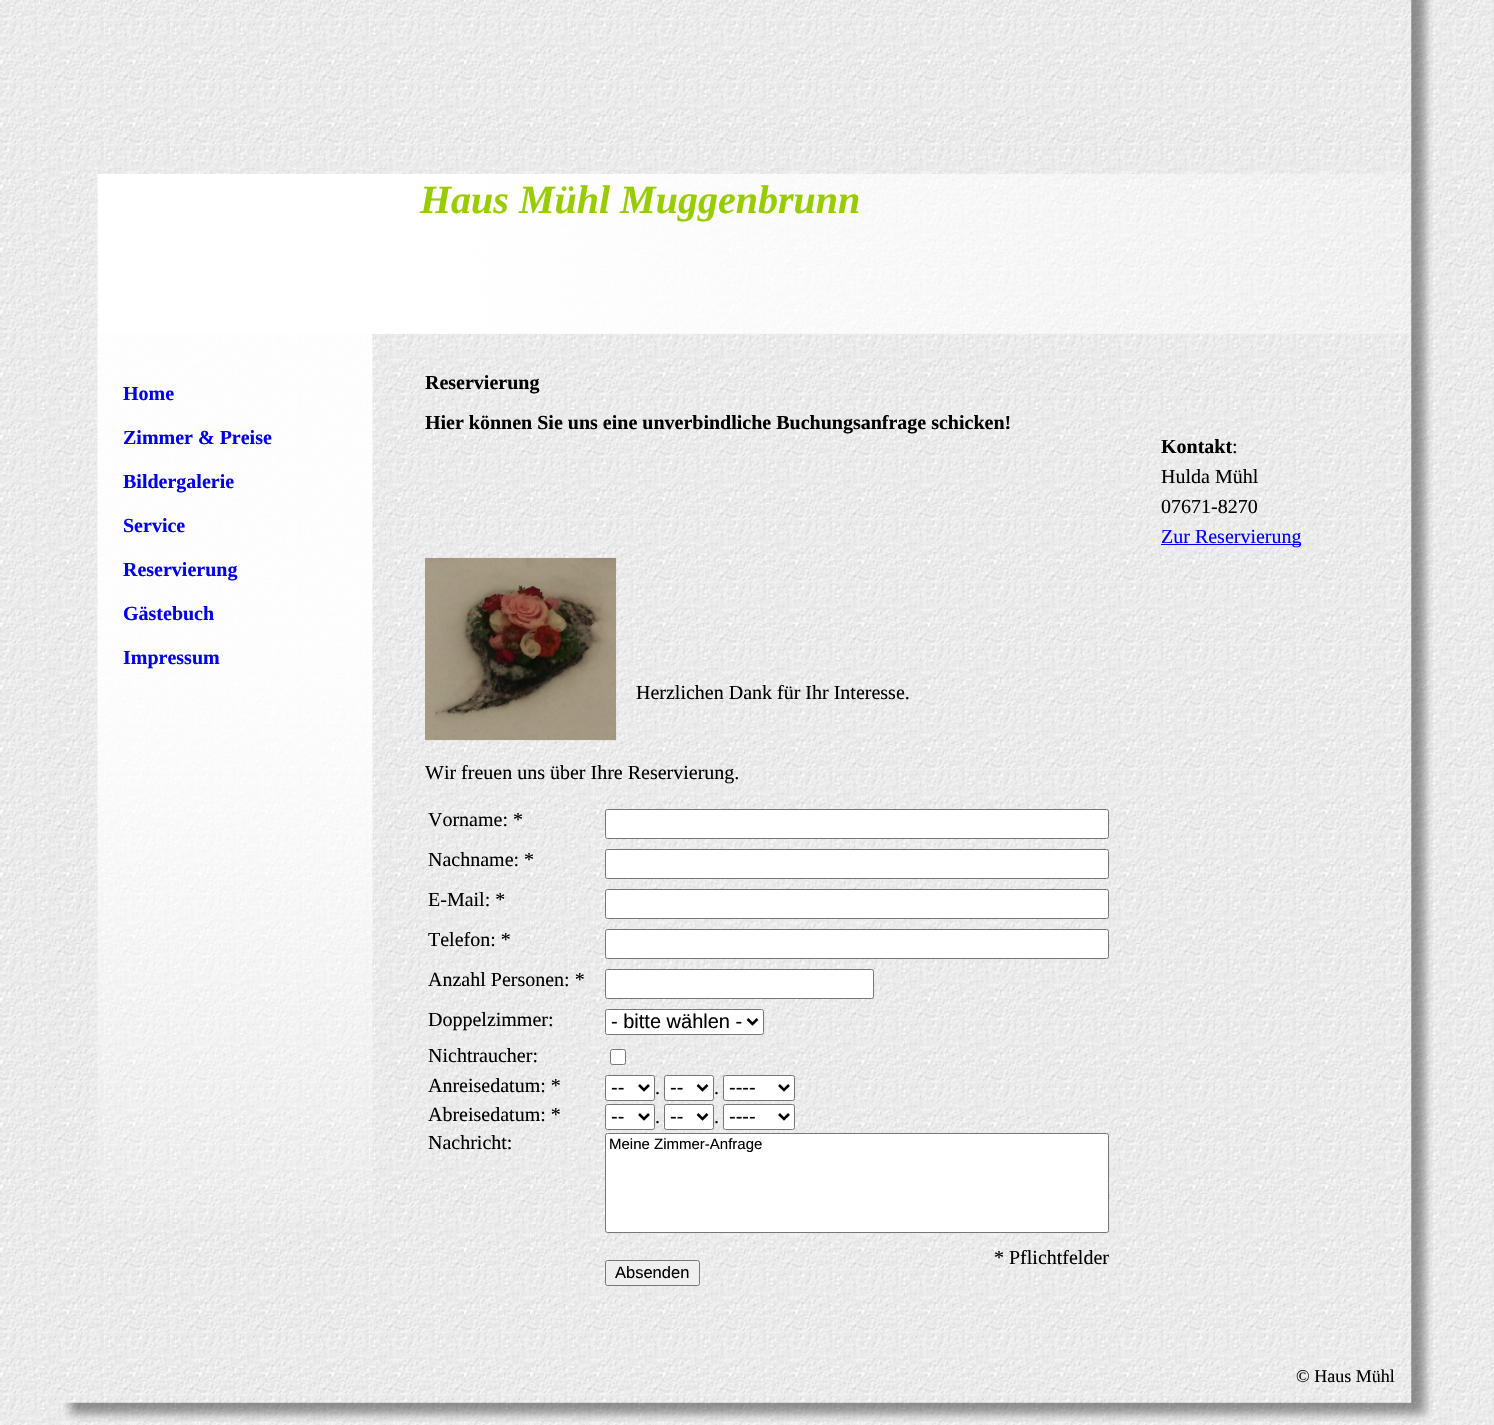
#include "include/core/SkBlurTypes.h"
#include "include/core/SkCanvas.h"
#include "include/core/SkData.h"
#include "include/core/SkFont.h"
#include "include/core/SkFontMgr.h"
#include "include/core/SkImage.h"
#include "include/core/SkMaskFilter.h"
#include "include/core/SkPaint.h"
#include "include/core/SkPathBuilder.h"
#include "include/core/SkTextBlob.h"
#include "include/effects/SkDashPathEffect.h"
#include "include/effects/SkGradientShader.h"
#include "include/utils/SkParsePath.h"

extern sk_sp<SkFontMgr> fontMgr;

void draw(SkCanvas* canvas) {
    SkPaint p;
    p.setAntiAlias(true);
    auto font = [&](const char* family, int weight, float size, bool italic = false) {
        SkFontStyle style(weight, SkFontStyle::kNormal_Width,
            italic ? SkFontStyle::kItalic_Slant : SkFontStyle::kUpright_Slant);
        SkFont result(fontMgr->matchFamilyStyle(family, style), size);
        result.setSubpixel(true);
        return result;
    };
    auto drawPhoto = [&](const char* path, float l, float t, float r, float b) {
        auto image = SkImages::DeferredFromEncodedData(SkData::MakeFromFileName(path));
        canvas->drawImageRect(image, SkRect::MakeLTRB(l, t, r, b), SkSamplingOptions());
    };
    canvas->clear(0xFFFFFFFF);
    drawPhoto("media/1.png", 0, 0, 1494, 1425);
    drawPhoto("media/2.png", 97, 174, 1410, 334);
    drawPhoto("media/3.png", 1411, 0, 1433, 334);
    auto font1 = font("Liberation Serif", 700, 40, true);
    p.setColor(0xFF99CC00);
    canvas->drawString("Haus Mühl Muggenbrunn", 420, 213, font1, p);
    drawPhoto("media/4.png", 97, 334, 373, 1219);
    auto font2 = font("Liberation Serif", 700, 20);
    p.setColor(0xFF0000EE);
    {
        const struct { const char* s; float x, y; } items[] = {
            {"Home", 123, 400},
            {"Zimmer & Preise", 123, 444},
            {"Bildergalerie", 123, 488},
            {"Service", 123, 532},
            {"Reservierung", 123, 576},
            {"Gästebuch", 123, 620},
            {"Impressum", 123, 664},
        };
        for (auto [s, x, y] : items) {
            canvas->drawString(s, x, y, font2, p);
        }
    }
    p.setColor(0xFF000000);
    canvas->drawString("Reservierung", 425, 389, font2, p);
    canvas->drawString("Hier können Sie uns eine unverbindliche Buchungsanfrage schicken!", 425, 429, font2, p);
    drawPhoto("media/5.png", 425, 557, 617, 741);
    auto font3 = font("Liberation Serif", 400, 20);
    {
        const struct { const char* s; float x, y; } items[] = {
            {"Herzlichen Dank für Ihr Interesse.", 636, 699},
            {"Wir freuen uns über Ihre Reservierung.", 425, 779},
            {"Vorname: *", 428, 826},
        };
        for (auto [s, x, y] : items) {
            canvas->drawString(s, x, y, font3, p);
        }
    }
    p.setColor(0xFFFFFFFF);
    canvas->drawRoundRect(SkRect::MakeLTRB(605.5f, 809.5f, 1108.5f, 838.5f), 2, 2, p);
    p.setStyle(SkPaint::kStroke_Style);
    p.setStrokeWidth(1);
    p.setColor(0xFF767676);
    canvas->drawRoundRect(SkRect::MakeLTRB(605.5f, 809.5f, 1108.5f, 838.5f), 2, 2, p);
    p.setStyle(SkPaint::kFill_Style);
    p.setColor(0xFF000000);
    canvas->drawString("Nachname: *", 428, 866, font3, p);
    p.setColor(0xFFFFFFFF);
    canvas->drawRoundRect(SkRect::MakeLTRB(605.5f, 849.5f, 1108.5f, 878.5f), 2, 2, p);
    p.setStyle(SkPaint::kStroke_Style);
    p.setColor(0xFF767676);
    canvas->drawRoundRect(SkRect::MakeLTRB(605.5f, 849.5f, 1108.5f, 878.5f), 2, 2, p);
    p.setStyle(SkPaint::kFill_Style);
    p.setColor(0xFF000000);
    canvas->drawString("E-Mail: *", 428, 906, font3, p);
    p.setColor(0xFFFFFFFF);
    canvas->drawRoundRect(SkRect::MakeLTRB(605.5f, 889.5f, 1108.5f, 918.5f), 2, 2, p);
    p.setStyle(SkPaint::kStroke_Style);
    p.setColor(0xFF767676);
    canvas->drawRoundRect(SkRect::MakeLTRB(605.5f, 889.5f, 1108.5f, 918.5f), 2, 2, p);
    p.setStyle(SkPaint::kFill_Style);
    p.setColor(0xFF000000);
    canvas->drawString("Telefon: *", 428, 946, font3, p);
    p.setColor(0xFFFFFFFF);
    canvas->drawRoundRect(SkRect::MakeLTRB(605.5f, 929.5f, 1108.5f, 958.5f), 2, 2, p);
    p.setStyle(SkPaint::kStroke_Style);
    p.setColor(0xFF767676);
    canvas->drawRoundRect(SkRect::MakeLTRB(605.5f, 929.5f, 1108.5f, 958.5f), 2, 2, p);
    p.setStyle(SkPaint::kFill_Style);
    p.setColor(0xFF000000);
    canvas->drawString("Anzahl Personen: *", 428, 986, font3, p);
    p.setColor(0xFFFFFFFF);
    canvas->drawRoundRect(SkRect::MakeLTRB(605.5f, 969.5f, 873.5f, 998.5f), 2, 2, p);
    p.setStyle(SkPaint::kStroke_Style);
    p.setColor(0xFF767676);
    canvas->drawRoundRect(SkRect::MakeLTRB(605.5f, 969.5f, 873.5f, 998.5f), 2, 2, p);
    p.setStyle(SkPaint::kFill_Style);
    p.setColor(0xFF000000);
    canvas->drawString("Doppelzimmer:", 428, 1026, font3, p);
    p.setColor(0xFFFFFFFF);
    canvas->drawRoundRect(SkRect::MakeLTRB(605.5f, 1009.5f, 763.5f, 1034.5f), 2, 2, p);
    p.setStyle(SkPaint::kStroke_Style);
    p.setColor(0xFF767676);
    canvas->drawRoundRect(SkRect::MakeLTRB(605.5f, 1009.5f, 763.5f, 1034.5f), 2, 2, p);
    p.setStrokeWidth(2.5f);
    p.setColor(0xFF000000);
    canvas->drawPath(SkPathBuilder().moveTo(747.5f, 1019).lineTo(752.5f, 1024).lineTo(757.5f, 1019).detach(), p);
    auto font4 = font("Liberation Sans", 400, 20);
    p.setStyle(SkPaint::kFill_Style);
    canvas->drawString("- bitte wählen -", 611, 1028, font4, p);
    canvas->drawString("Nichtraucher:", 428, 1062, font3, p);
    p.setColor(0xFFFFFFFF);
    canvas->drawRoundRect(SkRect::MakeLTRB(610.5f, 1049.5f, 625.5f, 1064.5f), 2, 2, p);
    p.setStyle(SkPaint::kStroke_Style);
    p.setStrokeWidth(1);
    p.setColor(0xFF767676);
    canvas->drawRoundRect(SkRect::MakeLTRB(610.5f, 1049.5f, 625.5f, 1064.5f), 2, 2, p);
    p.setStyle(SkPaint::kFill_Style);
    p.setColor(0xFF000000);
    canvas->drawString("Anreisedatum: *", 428, 1092, font3, p);
    p.setColor(0xFFFFFFFF);
    canvas->drawRoundRect(SkRect::MakeLTRB(605.5f, 1075.5f, 654.5f, 1100.5f), 2, 2, p);
    p.setStyle(SkPaint::kStroke_Style);
    p.setColor(0xFF767676);
    canvas->drawRoundRect(SkRect::MakeLTRB(605.5f, 1075.5f, 654.5f, 1100.5f), 2, 2, p);
    p.setStrokeWidth(2.5f);
    p.setColor(0xFF000000);
    canvas->drawPath(SkPathBuilder().moveTo(639, 1085).lineTo(644, 1090).lineTo(649, 1085).detach(), p);
    p.setStyle(SkPaint::kFill_Style);
    canvas->drawString("--", 611, 1094, font4, p);
    p.setColor(0xFFFFFFFF);
    canvas->drawRoundRect(SkRect::MakeLTRB(664.5f, 1075.5f, 713.5f, 1100.5f), 2, 2, p);
    p.setStyle(SkPaint::kStroke_Style);
    p.setStrokeWidth(1);
    p.setColor(0xFF767676);
    canvas->drawRoundRect(SkRect::MakeLTRB(664.5f, 1075.5f, 713.5f, 1100.5f), 2, 2, p);
    p.setStrokeWidth(2.5f);
    p.setColor(0xFF000000);
    canvas->drawPath(SkPathBuilder().moveTo(697.5f, 1085).lineTo(702.5f, 1090).lineTo(707.5f, 1085).detach(), p);
    p.setStyle(SkPaint::kFill_Style);
    canvas->drawString("--", 670, 1094, font4, p);
    p.setColor(0xFFFFFFFF);
    canvas->drawRoundRect(SkRect::MakeLTRB(723.5f, 1075.5f, 794.5f, 1100.5f), 2, 2, p);
    p.setStyle(SkPaint::kStroke_Style);
    p.setStrokeWidth(1);
    p.setColor(0xFF767676);
    canvas->drawRoundRect(SkRect::MakeLTRB(723.5f, 1075.5f, 794.5f, 1100.5f), 2, 2, p);
    p.setStrokeWidth(2.5f);
    p.setColor(0xFF000000);
    canvas->drawPath(SkPathBuilder().moveTo(779, 1085).lineTo(784, 1090).lineTo(789, 1085).detach(), p);
    p.setStyle(SkPaint::kFill_Style);
    canvas->drawString("----", 729, 1094, font4, p);
    {
        const struct { const char* s; float x, y; } items[] = {
            {".", 655, 1094},
            {".", 714, 1094},
            {"Abreisedatum: *", 428, 1121},
        };
        for (auto [s, x, y] : items) {
            canvas->drawString(s, x, y, font3, p);
        }
    }
    p.setColor(0xFFFFFFFF);
    canvas->drawRoundRect(SkRect::MakeLTRB(605.5f, 1104.5f, 654.5f, 1129.5f), 2, 2, p);
    p.setStyle(SkPaint::kStroke_Style);
    p.setStrokeWidth(1);
    p.setColor(0xFF767676);
    canvas->drawRoundRect(SkRect::MakeLTRB(605.5f, 1104.5f, 654.5f, 1129.5f), 2, 2, p);
    p.setStrokeWidth(2.5f);
    p.setColor(0xFF000000);
    canvas->drawPath(SkPathBuilder().moveTo(639, 1114).lineTo(644, 1119).lineTo(649, 1114).detach(), p);
    p.setStyle(SkPaint::kFill_Style);
    canvas->drawString("--", 611, 1123, font4, p);
    p.setColor(0xFFFFFFFF);
    canvas->drawRoundRect(SkRect::MakeLTRB(664.5f, 1104.5f, 713.5f, 1129.5f), 2, 2, p);
    p.setStyle(SkPaint::kStroke_Style);
    p.setStrokeWidth(1);
    p.setColor(0xFF767676);
    canvas->drawRoundRect(SkRect::MakeLTRB(664.5f, 1104.5f, 713.5f, 1129.5f), 2, 2, p);
    p.setStrokeWidth(2.5f);
    p.setColor(0xFF000000);
    canvas->drawPath(SkPathBuilder().moveTo(697.5f, 1114).lineTo(702.5f, 1119).lineTo(707.5f, 1114).detach(), p);
    p.setStyle(SkPaint::kFill_Style);
    canvas->drawString("--", 670, 1123, font4, p);
    p.setColor(0xFFFFFFFF);
    canvas->drawRoundRect(SkRect::MakeLTRB(723.5f, 1104.5f, 794.5f, 1129.5f), 2, 2, p);
    p.setStyle(SkPaint::kStroke_Style);
    p.setStrokeWidth(1);
    p.setColor(0xFF767676);
    canvas->drawRoundRect(SkRect::MakeLTRB(723.5f, 1104.5f, 794.5f, 1129.5f), 2, 2, p);
    p.setStrokeWidth(2.5f);
    p.setColor(0xFF000000);
    canvas->drawPath(SkPathBuilder().moveTo(779, 1114).lineTo(784, 1119).lineTo(789, 1114).detach(), p);
    p.setStyle(SkPaint::kFill_Style);
    canvas->drawString("----", 729, 1123, font4, p);
    {
        const struct { const char* s; float x, y; } items[] = {
            {".", 655, 1123},
            {".", 714, 1123},
            {"Nachricht:", 428, 1149},
        };
        for (auto [s, x, y] : items) {
            canvas->drawString(s, x, y, font3, p);
        }
    }
    p.setColor(0xFFFFFFFF);
    canvas->drawRoundRect(SkRect::MakeLTRB(605.5f, 1133.5f, 1108.5f, 1232.5f), 2, 2, p);
    p.setStyle(SkPaint::kStroke_Style);
    p.setStrokeWidth(1);
    p.setColor(0xFF767676);
    canvas->drawRoundRect(SkRect::MakeLTRB(605.5f, 1133.5f, 1108.5f, 1232.5f), 2, 2, p);
    auto font5 = font("Liberation Sans", 400, 15);
    p.setStyle(SkPaint::kFill_Style);
    p.setColor(0xFF000000);
    canvas->drawString("Meine Zimmer-Anfrage", 609, 1149, font5, p);
    canvas->drawString("* Pflichtfelder", 994, 1264, font3, p);
    p.setColor(0xFFEFEFEF);
    canvas->drawRoundRect(SkRect::MakeLTRB(605.5f, 1260.5f, 699.5f, 1285.5f), 2, 2, p);
    p.setStyle(SkPaint::kStroke_Style);
    p.setColor(0xFF767676);
    canvas->drawRoundRect(SkRect::MakeLTRB(605.5f, 1260.5f, 699.5f, 1285.5f), 2, 2, p);
    auto font6 = font("Liberation Sans", 400, 16.5f);
    p.setStyle(SkPaint::kFill_Style);
    p.setColor(0xFF000000);
    canvas->drawString("Absenden", 615, 1278, font6, p);
    canvas->drawString("Kontakt", 1161, 453, font2, p);
    {
        const struct { const char* s; float x, y; } items[] = {
            {":", 1232, 453},
            {"Hulda Mühl", 1161, 483},
            {"07671-8270", 1161, 513},
        };
        for (auto [s, x, y] : items) {
            canvas->drawString(s, x, y, font3, p);
        }
    }
    p.setColor(0xFF0000EE);
    canvas->drawRect(SkRect::MakeLTRB(1161, 544, 1301, 545), p);
    canvas->drawString("Zur Reservierung", 1161, 543, font3, p);
    drawPhoto("media/6.png", 1411, 334, 1433, 1352);
    auto font7 = font("Liberation Serif", 400, 18);
    p.setColor(0xFF000000);
    canvas->drawString("© Haus Mühl", 1296, 1382, font7, p);
    drawPhoto("media/7.png", 1411, 1351, 1433, 1403);
    drawPhoto("media/8.png", 62, 1402, 1433, 1422);
}
